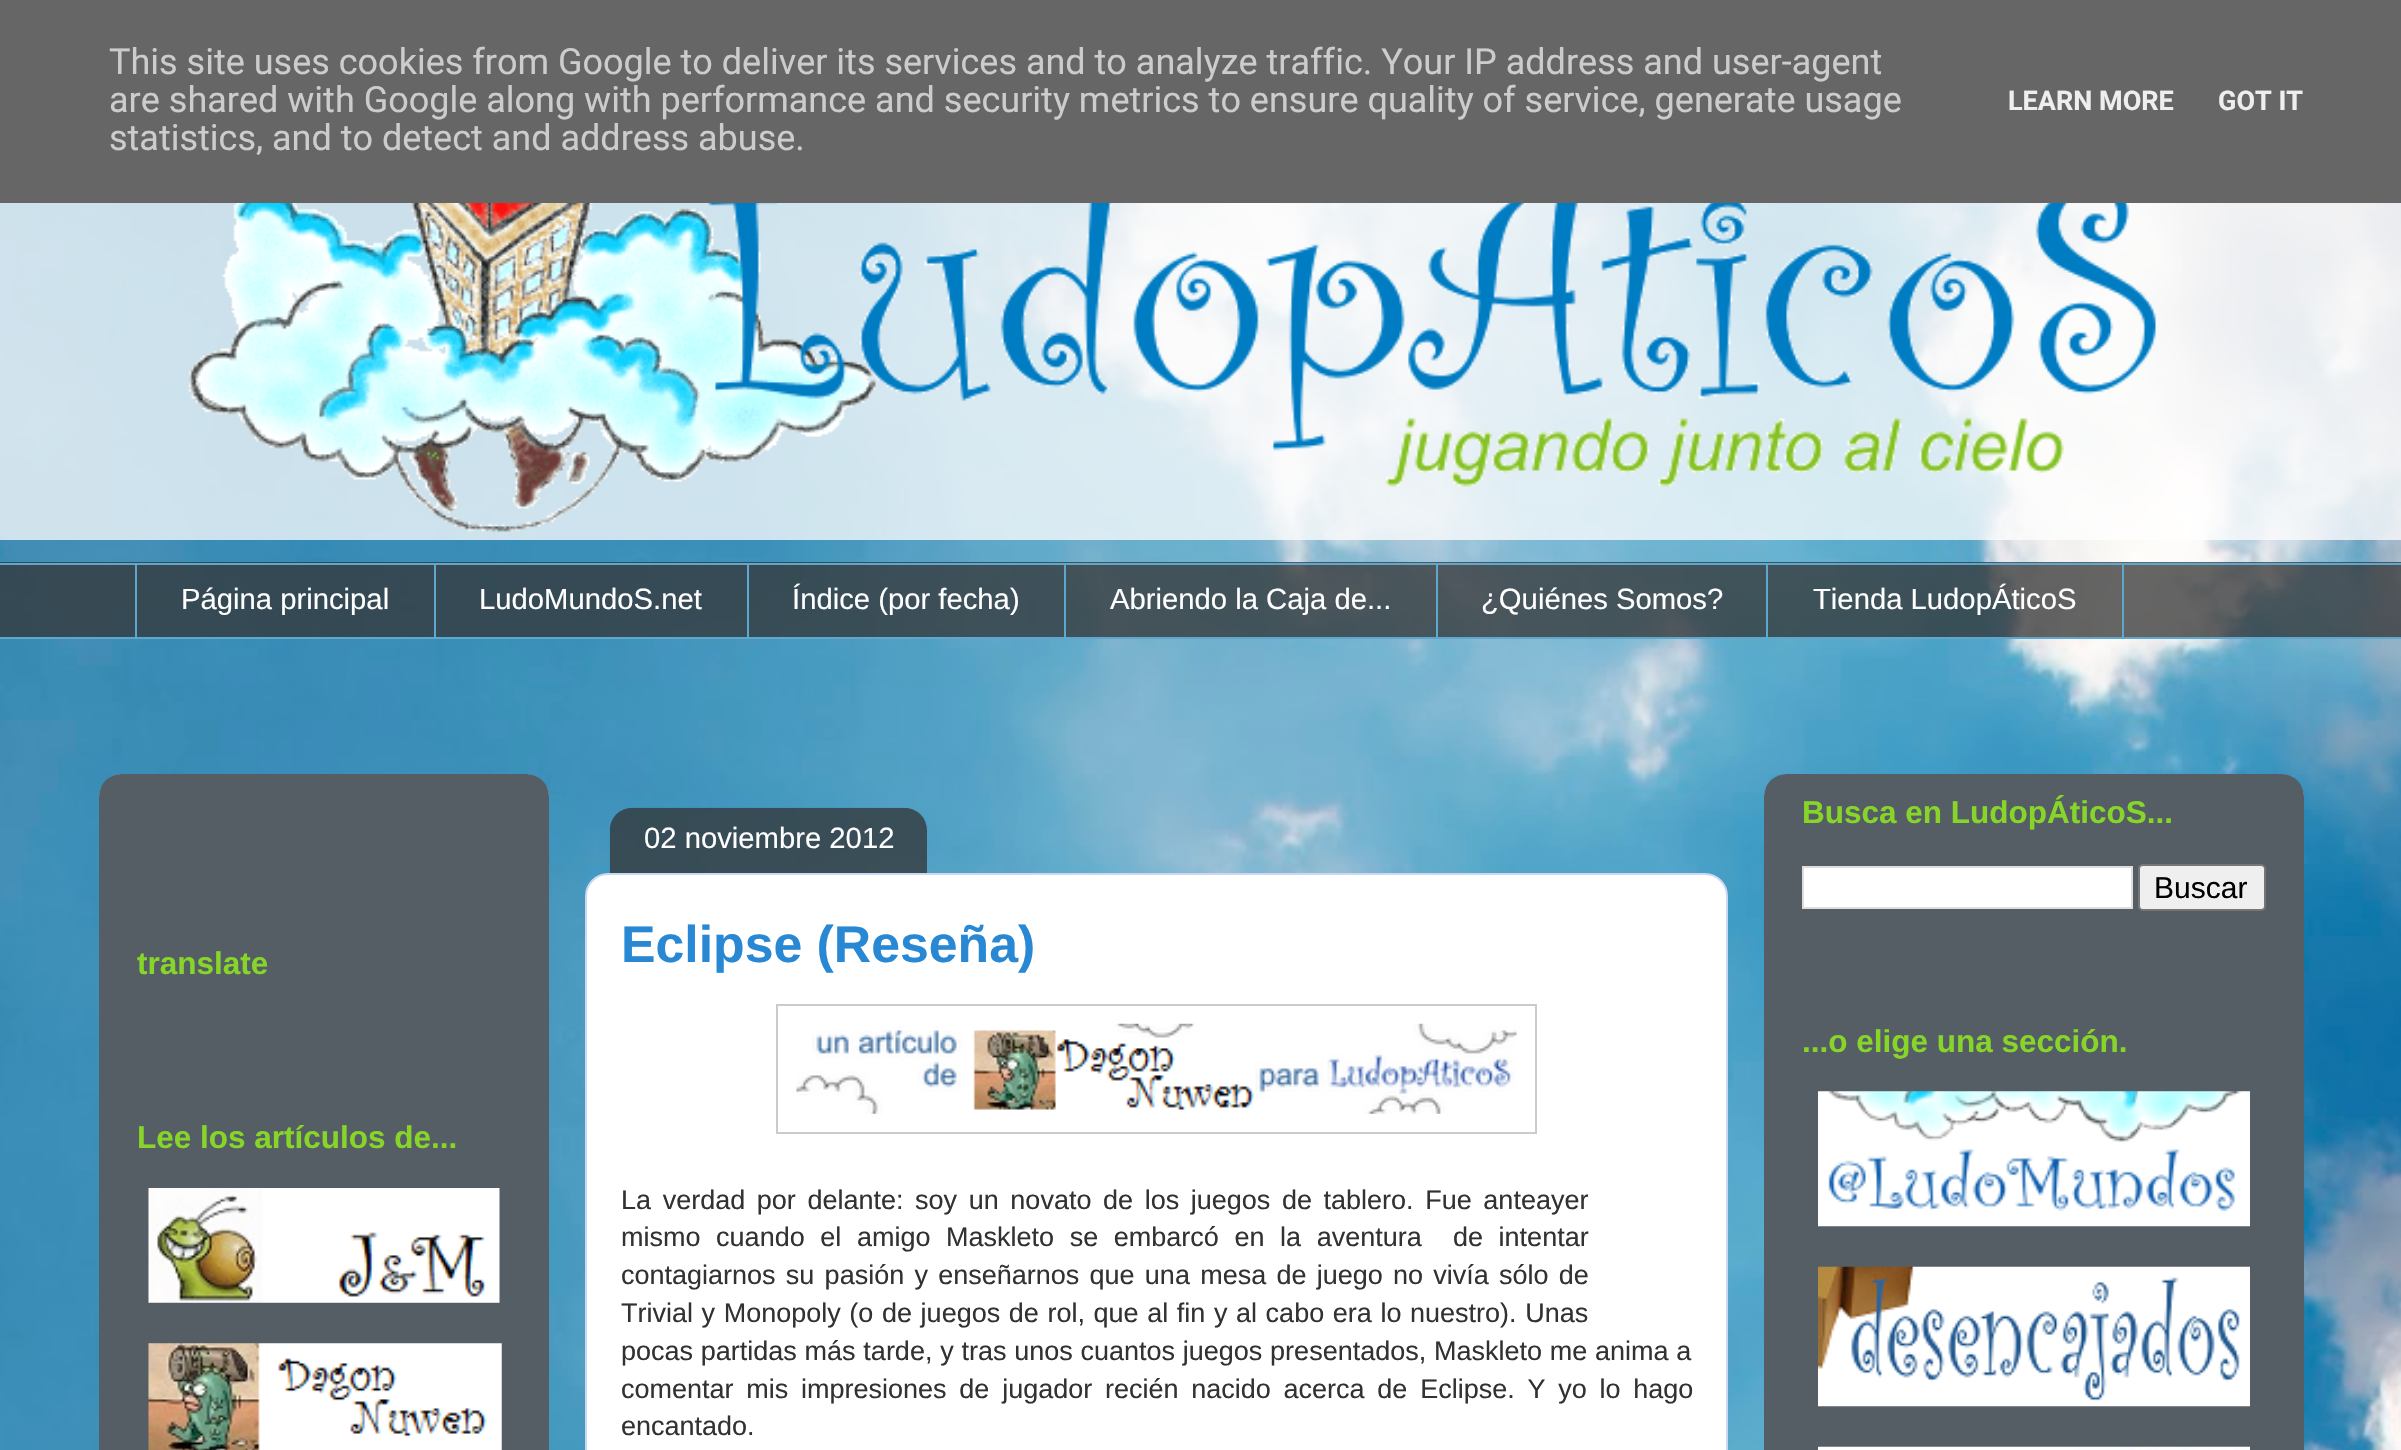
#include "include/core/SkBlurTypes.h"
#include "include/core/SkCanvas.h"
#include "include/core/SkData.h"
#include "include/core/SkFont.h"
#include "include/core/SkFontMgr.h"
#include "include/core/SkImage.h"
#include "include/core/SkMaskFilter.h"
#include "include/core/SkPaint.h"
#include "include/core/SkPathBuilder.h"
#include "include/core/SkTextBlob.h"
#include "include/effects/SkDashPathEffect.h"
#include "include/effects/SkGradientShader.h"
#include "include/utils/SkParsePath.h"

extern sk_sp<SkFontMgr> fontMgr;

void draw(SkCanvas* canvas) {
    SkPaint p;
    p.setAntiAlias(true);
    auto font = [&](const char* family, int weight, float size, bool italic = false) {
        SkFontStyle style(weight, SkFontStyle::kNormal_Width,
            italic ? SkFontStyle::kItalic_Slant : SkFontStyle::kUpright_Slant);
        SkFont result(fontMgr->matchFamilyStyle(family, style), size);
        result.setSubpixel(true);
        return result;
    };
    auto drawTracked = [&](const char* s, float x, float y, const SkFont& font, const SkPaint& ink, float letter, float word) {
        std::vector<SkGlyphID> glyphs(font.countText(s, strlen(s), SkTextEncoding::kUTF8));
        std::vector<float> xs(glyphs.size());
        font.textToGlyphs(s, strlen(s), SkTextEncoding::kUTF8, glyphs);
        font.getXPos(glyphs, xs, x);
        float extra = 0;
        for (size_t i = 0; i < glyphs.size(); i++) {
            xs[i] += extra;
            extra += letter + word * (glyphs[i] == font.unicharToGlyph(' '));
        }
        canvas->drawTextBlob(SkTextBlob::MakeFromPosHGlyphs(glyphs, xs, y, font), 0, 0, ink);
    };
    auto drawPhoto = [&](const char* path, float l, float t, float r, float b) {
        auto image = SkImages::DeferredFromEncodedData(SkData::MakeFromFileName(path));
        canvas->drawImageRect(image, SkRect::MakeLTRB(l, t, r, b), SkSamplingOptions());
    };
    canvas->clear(0xFFFFFFFF);
    drawPhoto("media/1.png", 0, 203, 2401, 1450);
    p.setColor(0xFF666666);
    canvas->drawRect(SkRect::MakeLTRB(0, 0, 2401, 203), p);
    auto font1 = font("Roboto", 400, 36);
    p.setColor(0xFFCCCCCC);
    {
        const struct { const char* s; float x, y; } items[] = {
            {"This site uses cookies from Google to deliver its services and to analyze traffic. Your IP address and user-agent", 109, 74},
            {"are shared with Google along with performance and security metrics to ensure quality of service, generate usage", 109, 112},
            {"statistics, and to detect and address abuse.", 109, 150},
        };
        for (auto [s, x, y] : items) {
            canvas->drawString(s, x, y, font1, p);
        }
    }
    auto font2 = font("Roboto", 700, 27);
    p.setColor(0xFFEEEEEE);
    canvas->drawString("LEARN MORE", 2008, 110, font2, p);
    canvas->drawString("GOT IT", 2218, 110, font2, p);
    p.setColor(0xBFFFFFFF);
    canvas->drawRect(SkRect::MakeLTRB(0, 203, 2401, 540), p);
    drawPhoto("media/2.png", 188, 203, 2156, 532);
    {
        const struct { float l, t, r, b; SkColor color; } items[] = {
            {0, 562, 2401, 637, 0xBF333333},
            {0, 563, 2401, 565, 0xFF5EA7CD},
            {135, 563, 137, 639, 0xFF5EA7CD},
        };
        for (auto [l, t, r, b, color] : items) {
            p.setColor(color);
            canvas->drawRect(SkRect::MakeLTRB(l, t, r, b), p);
        }
    }
    auto font3 = font("Liberation Sans", 400, 29.25f);
    p.setColor(0xFFFFFFFF);
    canvas->drawString("Página principal", 181, 609, font3, p);
    p.setColor(0xFF5EA7CD);
    canvas->drawRect(SkRect::MakeLTRB(434, 563, 436, 639), p);
    p.setColor(0xFFFFFFFF);
    canvas->drawString("LudoMundoS.net", 479, 609, font3, p);
    p.setColor(0xFF5EA7CD);
    canvas->drawRect(SkRect::MakeLTRB(747, 563, 749, 639), p);
    p.setColor(0xFFFFFFFF);
    canvas->drawString("Índice (por fecha)", 792, 609, font3, p);
    p.setColor(0xFF5EA7CD);
    canvas->drawRect(SkRect::MakeLTRB(1064, 563, 1066, 639), p);
    p.setColor(0xFFFFFFFF);
    canvas->drawString("Abriendo la Caja de...", 1110, 609, font3, p);
    p.setColor(0xFF5EA7CD);
    canvas->drawRect(SkRect::MakeLTRB(1436, 563, 1438, 639), p);
    p.setColor(0xFFFFFFFF);
    canvas->drawString("¿Quiénes Somos?", 1481, 609, font3, p);
    p.setStyle(SkPaint::kStroke_Style);
    p.setStrokeWidth(2);
    p.setColor(0xFF5EA7CD);
    canvas->drawRect(SkRect::MakeLTRB(1767, 564, 2123, 638), p);
    p.setStyle(SkPaint::kFill_Style);
    p.setColor(0xFFFFFFFF);
    canvas->drawString("Tienda LudopÁticoS", 1813, 609, font3, p);
    p.setColor(0xFF5EA7CD);
    canvas->drawRect(SkRect::MakeLTRB(0, 637, 2401, 639), p);
    p.setColor(0xFFBEDDFA);
    canvas->drawRoundRect(SkRect::MakeLTRB(99, 774, 549, 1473), 23, 23, p);
    drawPhoto("media/3.png", 99, 774, 549, 1450);
    auto font4 = font("Liberation Sans", 700, 31.5f);
    p.setColor(0xFF87D529);
    canvas->drawString("translate", 137, 974, font4, p);
    canvas->drawString("Lee los artículos de...", 137, 1148, font4, p);
    drawPhoto("media/4.png", 148, 1188, 500, 1303);
    drawPhoto("media/5.png", 148, 1343, 502, 1450);
    p.setColor(0xFFFFFFFF);
    canvas->drawPath(SkPathBuilder().moveTo(608, 874).lineTo(1705, 874).cubicTo(1717, 874, 1727, 884, 1727, 896).lineTo(1727, 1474).lineTo(586, 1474).lineTo(586, 896).cubicTo(586, 884, 596, 874, 608, 874).close().detach(), p);
    p.setStyle(SkPaint::kStroke_Style);
    p.setColor(0xFFCBD8F3);
    canvas->drawPath(SkPathBuilder().moveTo(608, 874).lineTo(1705, 874).cubicTo(1717, 874, 1727, 884, 1727, 896).lineTo(1727, 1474).lineTo(586, 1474).lineTo(586, 896).cubicTo(586, 884, 596, 874, 608, 874).close().detach(), p);
    drawPhoto("media/6.png", 609, 807, 927, 873);
    p.setStyle(SkPaint::kFill_Style);
    p.setColor(0xFFFFFFFF);
    canvas->drawString("02 noviembre 2012", 644, 848, font3, p);
    auto font5 = font("Liberation Sans", 700, 51.75f);
    p.setColor(0xFF2988D4);
    canvas->drawString("Eclipse (Reseña)", 621, 962, font5, p);
    p.setStyle(SkPaint::kStroke_Style);
    p.setColor(0xFFCBCBCB);
    canvas->drawRect(SkRect::MakeLTRB(777, 1005, 1536, 1133), p);
    drawPhoto("media/7.png", 796, 1023, 1517, 1114);
    auto font6 = font("Liberation Sans", 400, 27);
    p.setStyle(SkPaint::kFill_Style);
    p.setColor(0xFF323232);
    drawTracked("La verdad por delante: soy un novato de los juegos de tablero. Fue anteayer", 621, 1209, font6, p, 0, 4.1f);
    drawTracked("mismo cuando el amigo Maskleto se embarcó en la aventura  de intentar", 621, 1246, font6, p, 0, 8.1f);
    drawTracked("contagiarnos su pasión y enseñarnos que una mesa de juego no vivía sólo de", 621, 1284, font6, p, 0, 2.75f);
    drawTracked("Trivial y Monopoly (o de juegos de rol, que al fin y al cabo era lo nuestro). Unas", 621, 1322, font6, p, 0, 1.1f);
    drawTracked("pocas partidas más tarde, y tras unos cuantos juegos presentados, Maskleto me anima a", 621, 1360, font6, p, 0, 0.25f);
    drawTracked("comentar mis impresiones de jugador recién nacido acerca de Eclipse. Y yo lo hago", 621, 1398, font6, p, 0, 5.25f);
    canvas->drawString("encantado.", 621, 1435, font6, p);
    p.setColor(0xFFBEDDFA);
    canvas->drawRoundRect(SkRect::MakeLTRB(1764, 774, 2304, 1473), 23, 23, p);
    drawPhoto("media/8.png", 1764, 774, 2304, 1450);
    p.setColor(0xFF87D529);
    canvas->drawString("Busca en LudopÁticoS...", 1802, 823, font4, p);
    p.setColor(0xFFFFFFFF);
    canvas->drawRect(SkRect::MakeLTRB(1803, 867, 2132, 908), p);
    p.setStyle(SkPaint::kStroke_Style);
    p.setColor(0xFFDDDDDD);
    canvas->drawRect(SkRect::MakeLTRB(1803, 867, 2132, 908), p);
    p.setStyle(SkPaint::kFill_Style);
    p.setColor(0xFFEFEFEF);
    canvas->drawRoundRect(SkRect::MakeLTRB(2139, 865, 2265, 910), 4, 4, p);
    p.setStyle(SkPaint::kStroke_Style);
    p.setColor(0xFF767676);
    canvas->drawRoundRect(SkRect::MakeLTRB(2139, 865, 2265, 910), 4, 4, p);
    auto font7 = font("Liberation Sans", 400, 30);
    p.setStyle(SkPaint::kFill_Style);
    p.setColor(0xFF000000);
    canvas->drawString("Buscar", 2154, 898, font7, p);
    p.setColor(0xFF87D529);
    canvas->drawString("...o elige una sección.", 1802, 1052, font4, p);
    drawPhoto("media/9.png", 1818, 1091, 2250, 1227);
    drawPhoto("media/10.png", 1818, 1266, 2250, 1407);
    drawPhoto("media/11.png", 1818, 1446, 2250, 1450);
}
